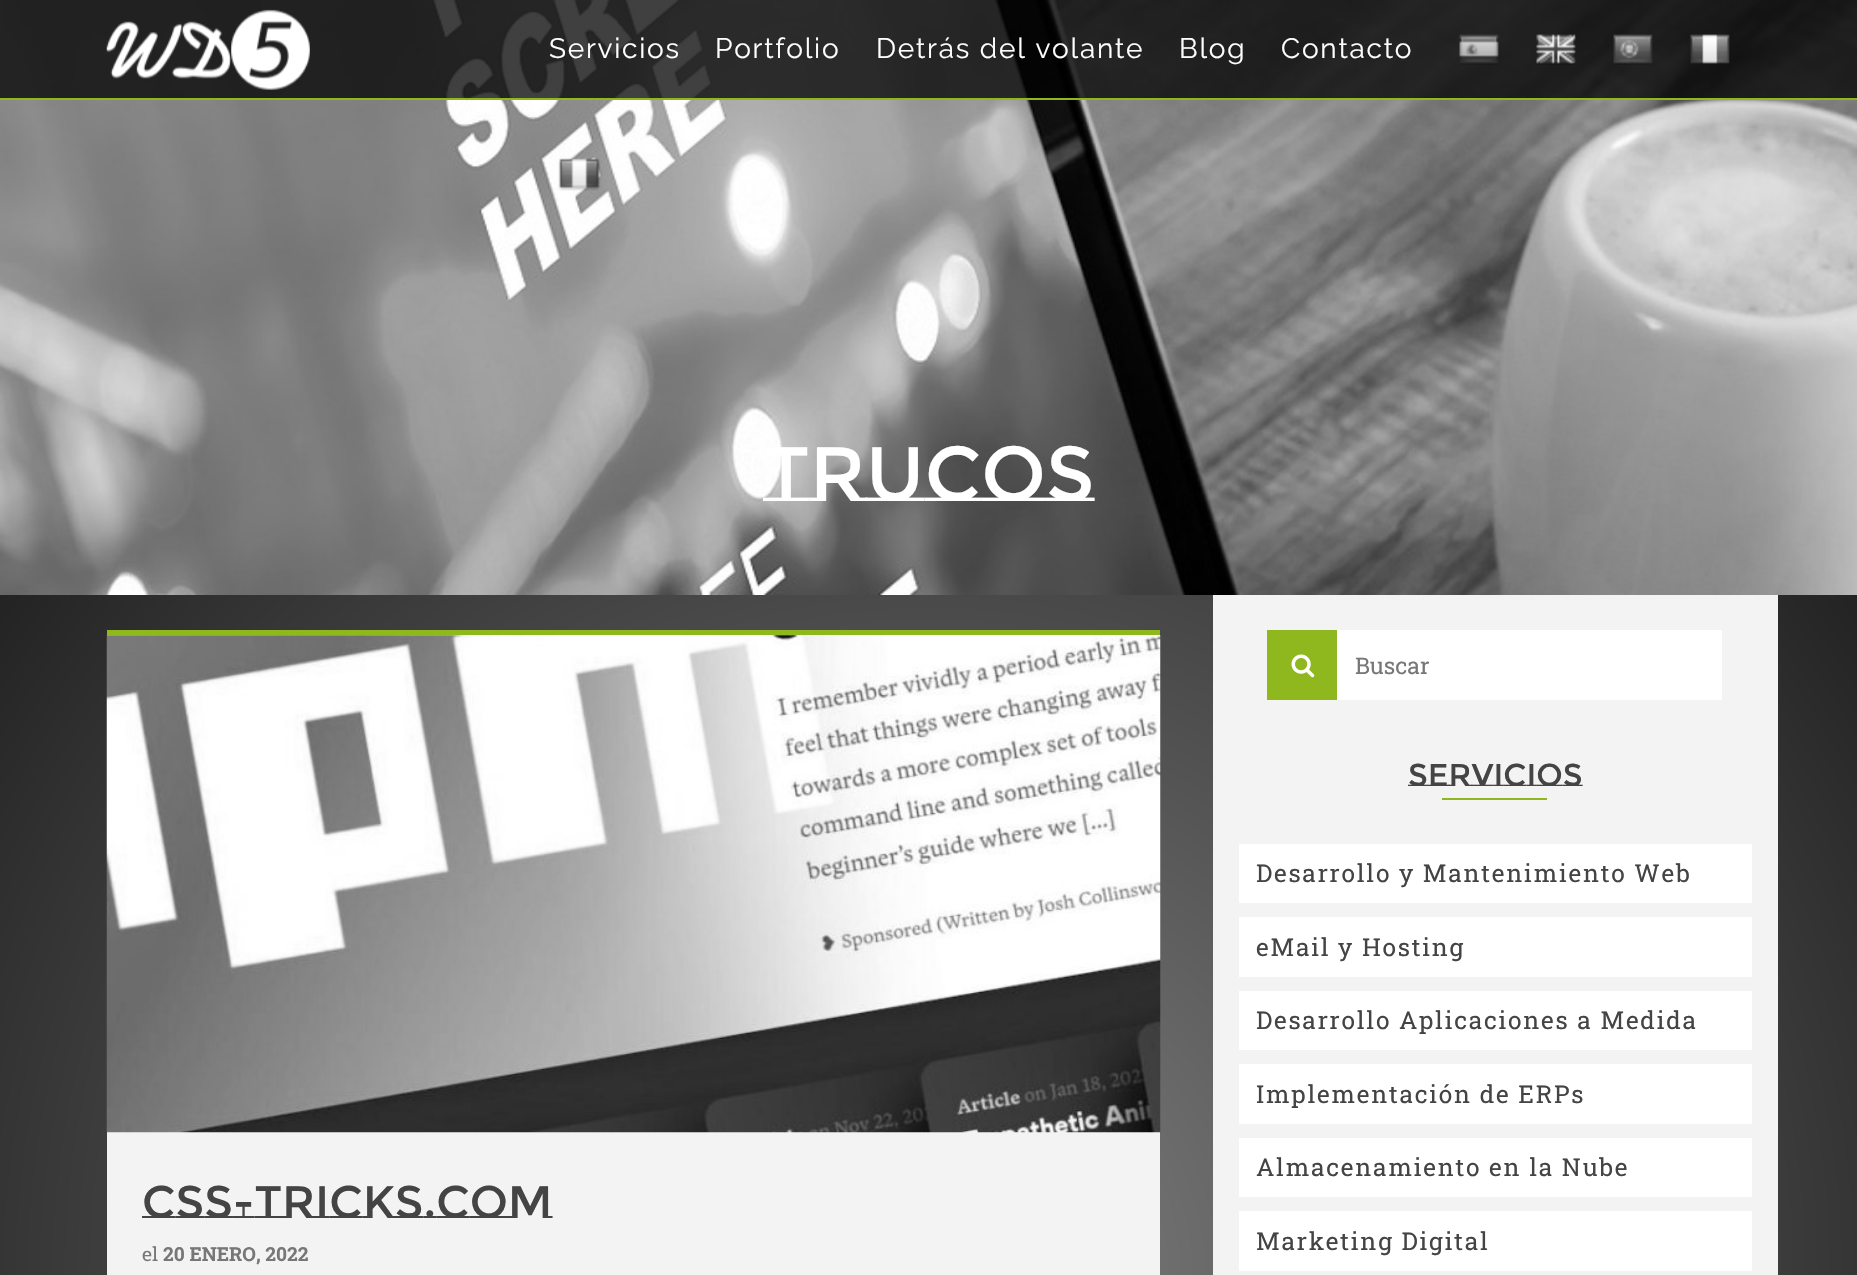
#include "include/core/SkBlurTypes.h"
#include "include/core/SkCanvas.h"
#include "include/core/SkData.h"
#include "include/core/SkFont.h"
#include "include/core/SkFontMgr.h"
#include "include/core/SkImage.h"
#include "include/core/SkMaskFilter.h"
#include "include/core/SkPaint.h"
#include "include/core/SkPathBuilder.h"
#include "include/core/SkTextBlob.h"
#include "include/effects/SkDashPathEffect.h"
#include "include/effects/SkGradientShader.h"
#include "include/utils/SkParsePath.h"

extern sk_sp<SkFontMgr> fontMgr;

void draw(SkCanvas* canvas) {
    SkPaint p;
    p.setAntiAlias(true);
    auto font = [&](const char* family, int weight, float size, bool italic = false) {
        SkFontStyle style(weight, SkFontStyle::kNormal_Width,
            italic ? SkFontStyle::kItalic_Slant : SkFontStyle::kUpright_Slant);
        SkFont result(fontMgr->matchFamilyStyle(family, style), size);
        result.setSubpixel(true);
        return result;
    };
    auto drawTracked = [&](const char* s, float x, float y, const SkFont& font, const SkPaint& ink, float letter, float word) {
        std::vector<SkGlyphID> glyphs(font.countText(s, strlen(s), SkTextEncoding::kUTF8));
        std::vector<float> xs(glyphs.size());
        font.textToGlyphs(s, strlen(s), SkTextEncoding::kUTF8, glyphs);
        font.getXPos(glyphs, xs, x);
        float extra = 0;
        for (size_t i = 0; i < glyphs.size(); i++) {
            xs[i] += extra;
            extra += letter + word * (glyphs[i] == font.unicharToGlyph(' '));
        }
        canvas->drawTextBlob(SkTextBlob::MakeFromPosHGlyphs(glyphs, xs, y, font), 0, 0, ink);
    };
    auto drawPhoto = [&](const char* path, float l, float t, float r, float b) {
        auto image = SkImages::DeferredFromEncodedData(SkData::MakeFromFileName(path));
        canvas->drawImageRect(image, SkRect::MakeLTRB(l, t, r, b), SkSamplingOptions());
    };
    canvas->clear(0xFFFFFFFF);
    {
        const SkColor colors[] = {0xFF818181, 0xFF1A1A1A};
        const float stops[] = {0, 0.8f};
        p.setShader(SkGradientShader::MakeRadial({929, 1276}, 1578, colors, stops, 2, SkTileMode::kClamp));
        p.setAlpha(255);
    }
    canvas->drawRect(SkRect::MakeLTRB(0, 595, 1857, 1275), p);
    drawPhoto("media/7.png", 0, 0, 1857, 595);
    p.setShader(nullptr);
    p.setColor(0xBF000000);
    canvas->drawRect(SkRect::MakeLTRB(0, 0, 1857, 98), p);
    p.setColor(0xFF8FB81F);
    canvas->drawRect(SkRect::MakeLTRB(0, 98, 1857, 100), p);
    drawPhoto("media/1.png", 106, 9, 310, 90);
    auto font1 = font("Raleway", 400, 28);
    p.setColor(0xFFFFFFFF);
    {
        const struct { const char* s; float x, y; } items[] = {
            {"Servicios", 549, 58},
            {"Portfolio", 715, 58},
            {"Detrás del volante", 876, 58},
            {"Blog", 1179, 58},
            {"Contacto", 1281, 58},
        };
        for (auto [s, x, y] : items) {
            drawTracked(s, x, y, font1, p, 1.75f, 0);
        }
    }
    drawPhoto("media/2.png", 1459, 34, 1499, 65);
    drawPhoto("media/3.png", 1536, 34, 1576, 65);
    drawPhoto("media/4.png", 1613, 34, 1653, 65);
    drawPhoto("media/5.png", 1690, 34, 1730, 64);
    drawPhoto("media/6.png", 558, 158, 601, 191);
    auto font2 = font("Montserrat Subrayada", 400, 77);
    canvas->drawString("trucos", 763, 501, font2, p);
    p.setColor(0xFFF3F3F3);
    canvas->drawRect(SkRect::MakeLTRB(107, 635, 1160, 1275), p);
    p.setColor(0xFF8FB81F);
    canvas->drawRect(SkRect::MakeLTRB(107, 630, 1160, 635), p);
    drawPhoto("media/8.png", 106, 635, 1161, 1133);
    auto font3 = font("Montserrat Subrayada", 400, 45.5f);
    p.setColor(0xFF444444);
    canvas->drawString("CSS-Tricks.com", 142, 1218, font3, p);
    auto font4 = font("Roboto Slab", 400, 19.25f);
    p.setColor(0xFF777777);
    canvas->drawString("el", 142, 1261, font4, p);
    auto font5 = font("Roboto Slab", 700, 19.25f);
    canvas->drawString("20 ENERO, 2022", 163, 1261, font5, p);
    p.setColor(0xFFF3F3F3);
    canvas->drawRect(SkRect::MakeLTRB(1213, 595, 1778, 1275), p);
    p.setColor(0xFF8FB81F);
    canvas->drawRect(SkRect::MakeLTRB(1267, 630, 1337, 700), p);
    drawPhoto("media/9.png", 1291, 654, 1315, 678);
    p.setColor(0xFFFFFFFF);
    canvas->drawRect(SkRect::MakeLTRB(1337, 630, 1722, 700), p);
    auto font6 = font("Roboto Slab", 400, 23);
    p.setColor(0xFF777777);
    canvas->drawString("Buscar", 1355, 674, font6, p);
    auto font7 = font("Montserrat Subrayada", 400, 31.5f);
    p.setColor(0xFF444444);
    canvas->drawString("Servicios", 1408, 786, font7, p);
    p.setColor(0xFF8FB81F);
    canvas->drawRect(SkRect::MakeLTRB(1442, 798, 1547, 800), p);
    p.setColor(0xFFFFFFFF);
    canvas->drawRect(SkRect::MakeLTRB(1239, 844, 1752, 903), p);
    auto font8 = font("Roboto Slab", 400, 24.5f);
    p.setColor(0xFF444444);
    drawTracked("Desarrollo y Mantenimiento Web", 1256, 882, font8, p, 1.75f, 0);
    p.setColor(0xFFFFFFFF);
    canvas->drawRect(SkRect::MakeLTRB(1239, 917, 1752, 977), p);
    p.setColor(0xFF444444);
    drawTracked("eMail y Hosting", 1256, 956, font8, p, 1.75f, 0);
    p.setColor(0xFFFFFFFF);
    canvas->drawRect(SkRect::MakeLTRB(1239, 991, 1752, 1050), p);
    p.setColor(0xFF444444);
    drawTracked("Desarrollo Aplicaciones a Medida", 1256, 1029, font8, p, 1.75f, 0);
    p.setColor(0xFFFFFFFF);
    canvas->drawRect(SkRect::MakeLTRB(1239, 1064, 1752, 1124), p);
    p.setColor(0xFF444444);
    drawTracked("Implementación de ERPs", 1256, 1103, font8, p, 1.75f, 0);
    p.setColor(0xFFFFFFFF);
    canvas->drawRect(SkRect::MakeLTRB(1239, 1138, 1752, 1197), p);
    p.setColor(0xFF444444);
    drawTracked("Almacenamiento en la Nube", 1256, 1176, font8, p, 1.75f, 0);
    p.setColor(0xFFFFFFFF);
    canvas->drawRect(SkRect::MakeLTRB(1239, 1211, 1752, 1271), p);
    p.setColor(0xFF444444);
    drawTracked("Marketing Digital", 1256, 1250, font8, p, 1.75f, 0);
}
